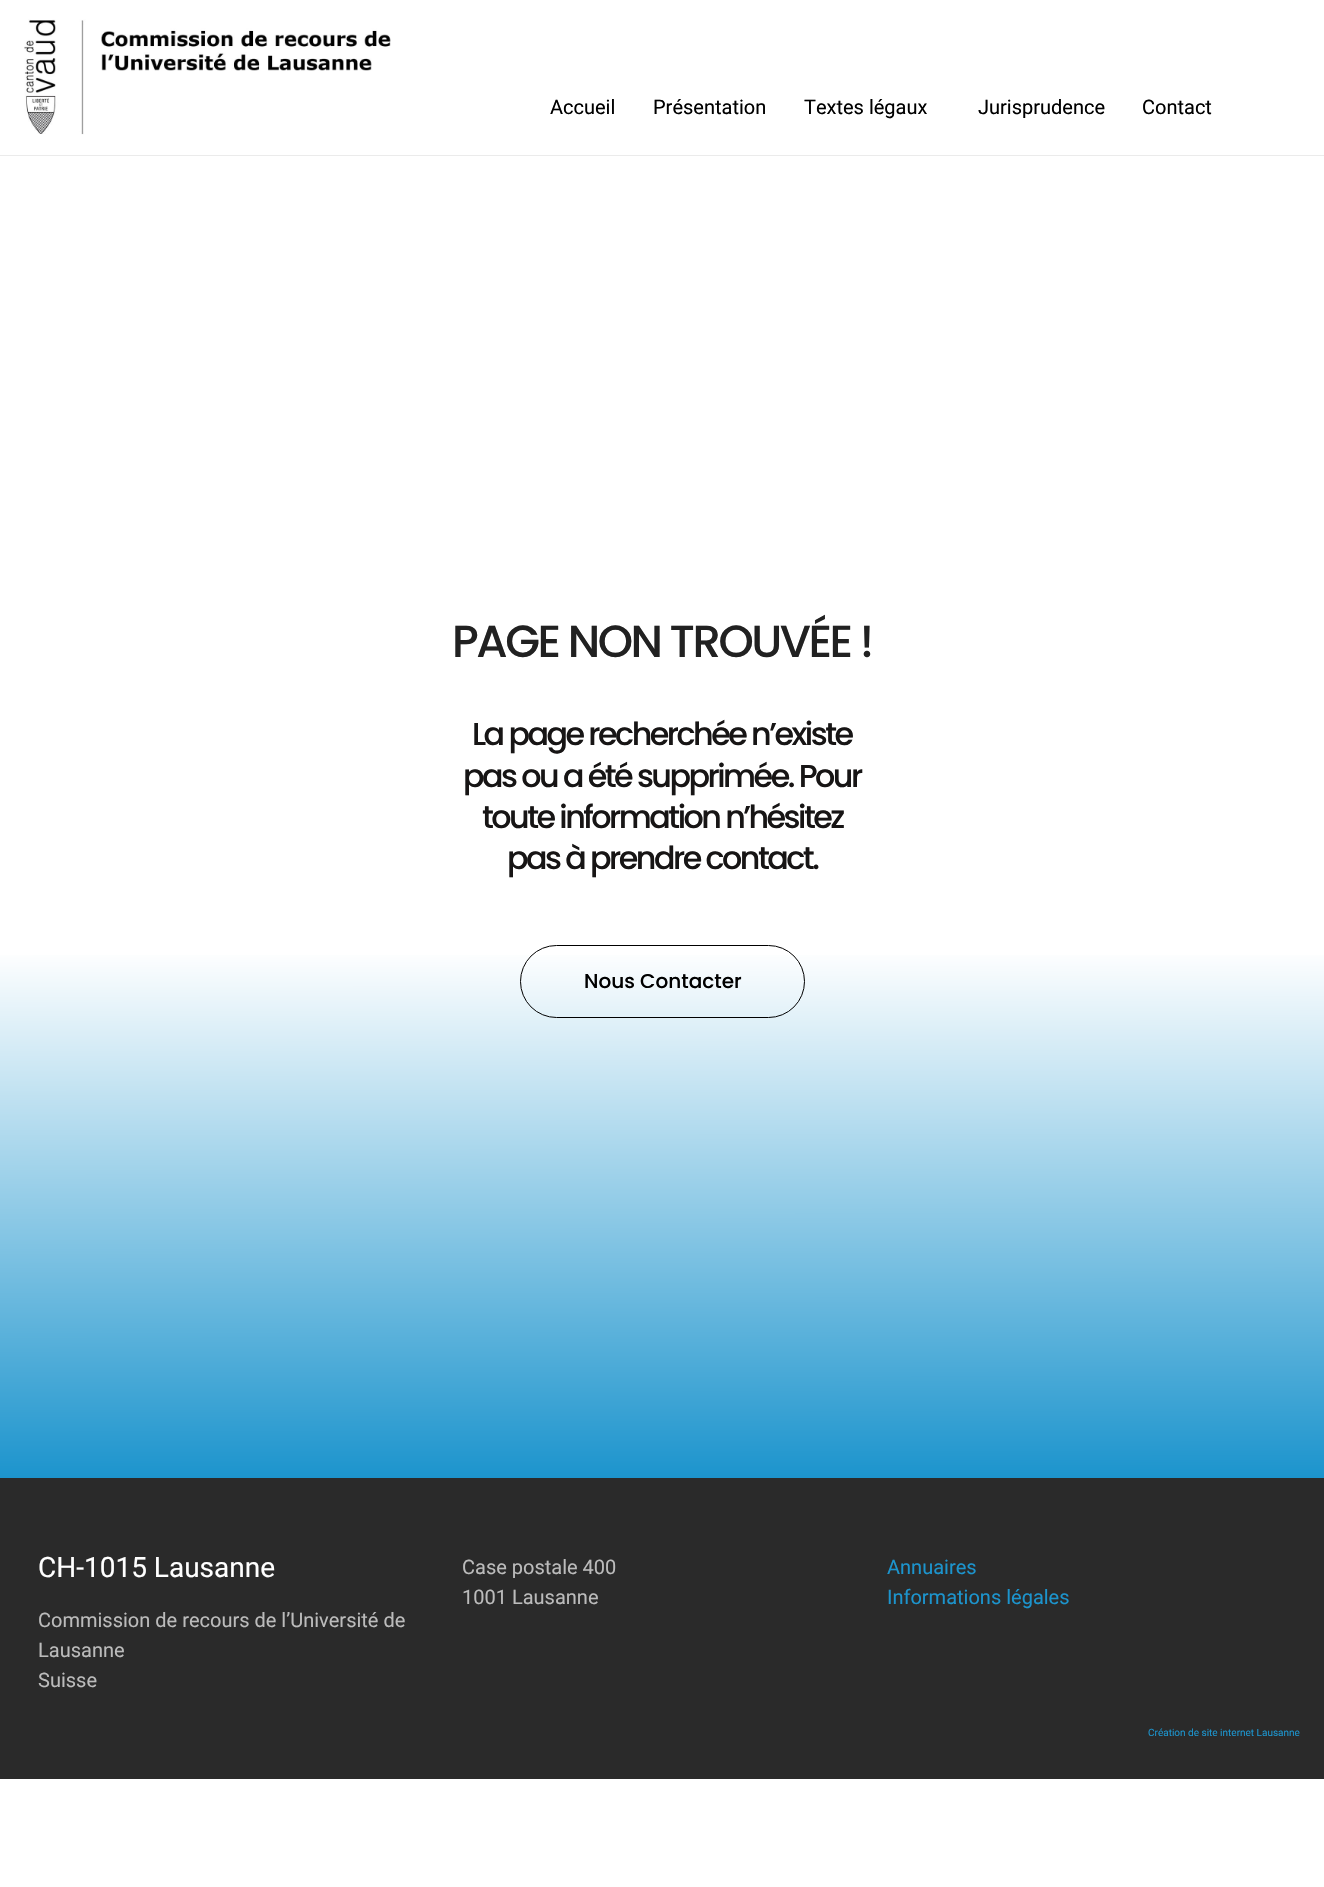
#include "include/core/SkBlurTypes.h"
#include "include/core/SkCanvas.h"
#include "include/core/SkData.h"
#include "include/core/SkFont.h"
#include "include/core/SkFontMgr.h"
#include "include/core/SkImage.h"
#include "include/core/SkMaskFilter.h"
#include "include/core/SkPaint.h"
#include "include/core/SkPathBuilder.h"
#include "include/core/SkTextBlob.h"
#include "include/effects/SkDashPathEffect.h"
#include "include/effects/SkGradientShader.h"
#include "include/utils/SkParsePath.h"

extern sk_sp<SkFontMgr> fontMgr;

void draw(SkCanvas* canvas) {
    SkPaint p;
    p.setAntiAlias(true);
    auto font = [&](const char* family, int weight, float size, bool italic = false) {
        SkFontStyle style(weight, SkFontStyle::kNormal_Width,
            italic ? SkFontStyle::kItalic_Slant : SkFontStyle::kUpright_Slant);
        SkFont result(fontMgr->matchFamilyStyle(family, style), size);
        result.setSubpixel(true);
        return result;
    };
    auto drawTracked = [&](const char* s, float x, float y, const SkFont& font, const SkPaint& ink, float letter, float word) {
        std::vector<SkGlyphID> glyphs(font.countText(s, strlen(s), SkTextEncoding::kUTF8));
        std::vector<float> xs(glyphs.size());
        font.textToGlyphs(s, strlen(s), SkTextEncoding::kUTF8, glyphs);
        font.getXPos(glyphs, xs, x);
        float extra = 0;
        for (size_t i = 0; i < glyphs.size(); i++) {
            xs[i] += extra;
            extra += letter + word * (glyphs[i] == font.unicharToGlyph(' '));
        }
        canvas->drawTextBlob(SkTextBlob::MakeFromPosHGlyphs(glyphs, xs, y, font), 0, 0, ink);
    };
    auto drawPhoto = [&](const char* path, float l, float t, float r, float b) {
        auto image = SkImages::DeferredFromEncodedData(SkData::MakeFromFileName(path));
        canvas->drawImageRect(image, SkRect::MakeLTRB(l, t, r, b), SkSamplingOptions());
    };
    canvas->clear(0xFFFFFFFF);
    p.setColor(0xFFEBEBEB);
    canvas->drawRect(SkRect::MakeLTRB(0, 155, 1324, 156), p);
    drawPhoto("media/1.png", 24, 19, 391, 135);
    auto font1 = font("Roboto", 400, 20);
    p.setColor(0xFF000000);
    {
        const struct { const char* s; float x, y; } items[] = {
            {"Accueil", 550, 114},
            {"Présentation", 653, 114},
            {"Textes légaux", 804, 114},
            {"Jurisprudence", 978, 114},
            {"Contact", 1142, 114},
        };
        for (auto [s, x, y] : items) {
            canvas->drawString(s, x, y, font1, p);
        }
    }
    {
        const SkColor colors[] = {0xFFFFFFFF, 0xFF1C94CD};
        const float stops[] = {0.6f, 1};
        const SkPoint ends[] = {{662, 156}, {663, 1478}};
        p.setShader(SkGradientShader::MakeLinear(ends, colors, stops, 2, SkTileMode::kClamp));
        p.setAlpha(255);
    }
    canvas->drawRect(SkRect::MakeLTRB(0, 955, 1324, 1478), p);
    auto font2 = font("Poppins", 500, 45);
    p.setShader(nullptr);
    p.setColor(0xFF212121);
    drawTracked("PAGE NON TROUVÉE !", 452, 657, font2, p, -2.5f, 0);
    auto font3 = font("Poppins", 500, 31.75f);
    p.setColor(0xFF171515);
    {
        const struct { const char* s; float x, y; } items[] = {
            {"La page recherchée n’existe", 472, 745},
            {"pas ou a été supprimée. Pour", 463, 787},
            {"toute information n’hésitez", 482, 828},
            {"pas à prendre contact.", 507, 869},
        };
        for (auto [s, x, y] : items) {
            drawTracked(s, x, y, font3, p, -2.5f, 0);
        }
    }
    p.setStyle(SkPaint::kStroke_Style);
    p.setStrokeWidth(1);
    p.setColor(0xFF000000);
    canvas->drawRoundRect(SkRect::MakeLTRB(520.5f, 945.5f, 804.5f, 1017.5f), 36, 36, p);
    auto font4 = font("Poppins", 500, 20);
    p.setStyle(SkPaint::kFill_Style);
    canvas->drawString("Nous Contacter", 584, 988, font4, p);
    p.setColor(0xFF2A2A2A);
    canvas->drawRect(SkRect::MakeLTRB(0, 1478, 1324, 1779), p);
    auto font5 = font("Roboto", 400, 28);
    p.setColor(0xFFFFFFFF);
    canvas->drawString("CH-1015 Lausanne", 38, 1577, font5, p);
    p.setColor(0xFFBBBBBB);
    {
        const struct { const char* s; float x, y; } items[] = {
            {"Commission de recours de l’Université de", 38, 1627},
            {"Lausanne", 38, 1657},
            {"Suisse", 38, 1687},
            {"Case postale 400", 462, 1574},
            {"1001 Lausanne", 462, 1604},
        };
        for (auto [s, x, y] : items) {
            canvas->drawString(s, x, y, font1, p);
        }
    }
    p.setColor(0xFF1C94CD);
    canvas->drawString("Annuaires", 887, 1574, font1, p);
    canvas->drawString("Informations légales", 887, 1604, font1, p);
    auto font6 = font("Roboto", 400, 10);
    canvas->drawString("Création de site internet Lausanne", 1148, 1736, font6, p);
}
